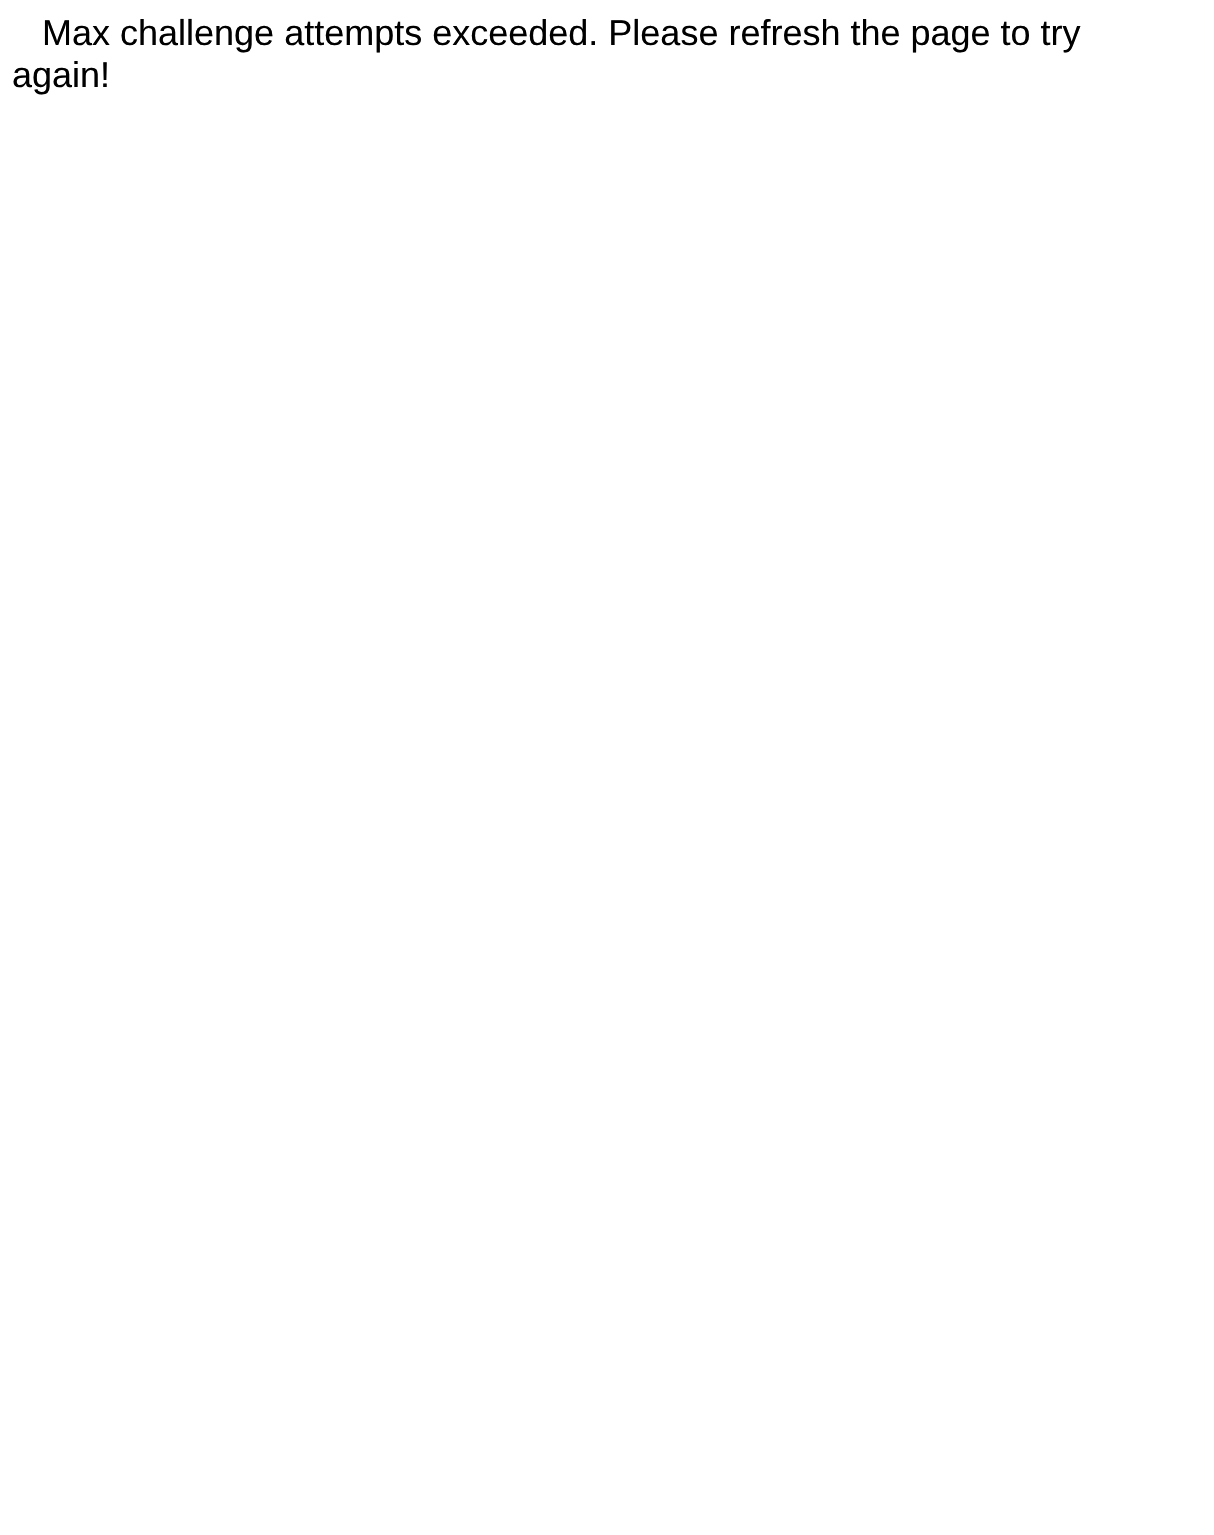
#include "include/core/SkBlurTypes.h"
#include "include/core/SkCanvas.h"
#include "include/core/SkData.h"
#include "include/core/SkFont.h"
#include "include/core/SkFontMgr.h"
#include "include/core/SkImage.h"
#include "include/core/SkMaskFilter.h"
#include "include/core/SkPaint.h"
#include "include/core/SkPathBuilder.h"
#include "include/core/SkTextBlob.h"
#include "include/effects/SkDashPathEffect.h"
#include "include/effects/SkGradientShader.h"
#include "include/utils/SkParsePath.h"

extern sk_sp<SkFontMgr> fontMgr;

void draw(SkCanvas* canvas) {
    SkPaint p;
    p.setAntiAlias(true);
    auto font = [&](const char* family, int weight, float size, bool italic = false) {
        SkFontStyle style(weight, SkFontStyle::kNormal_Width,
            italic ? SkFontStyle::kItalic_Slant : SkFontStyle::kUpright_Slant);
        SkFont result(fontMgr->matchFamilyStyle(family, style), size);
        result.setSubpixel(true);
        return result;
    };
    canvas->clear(0xFFFFFFFF);
    auto font1 = font("Liberation Sans", 400, 36);
    p.setColor(0xFF000000);
    canvas->drawString("Max challenge attempts exceeded. Please refresh the page to try", 42, 45, font1, p);
    canvas->drawString("again!", 12, 87, font1, p);
}
